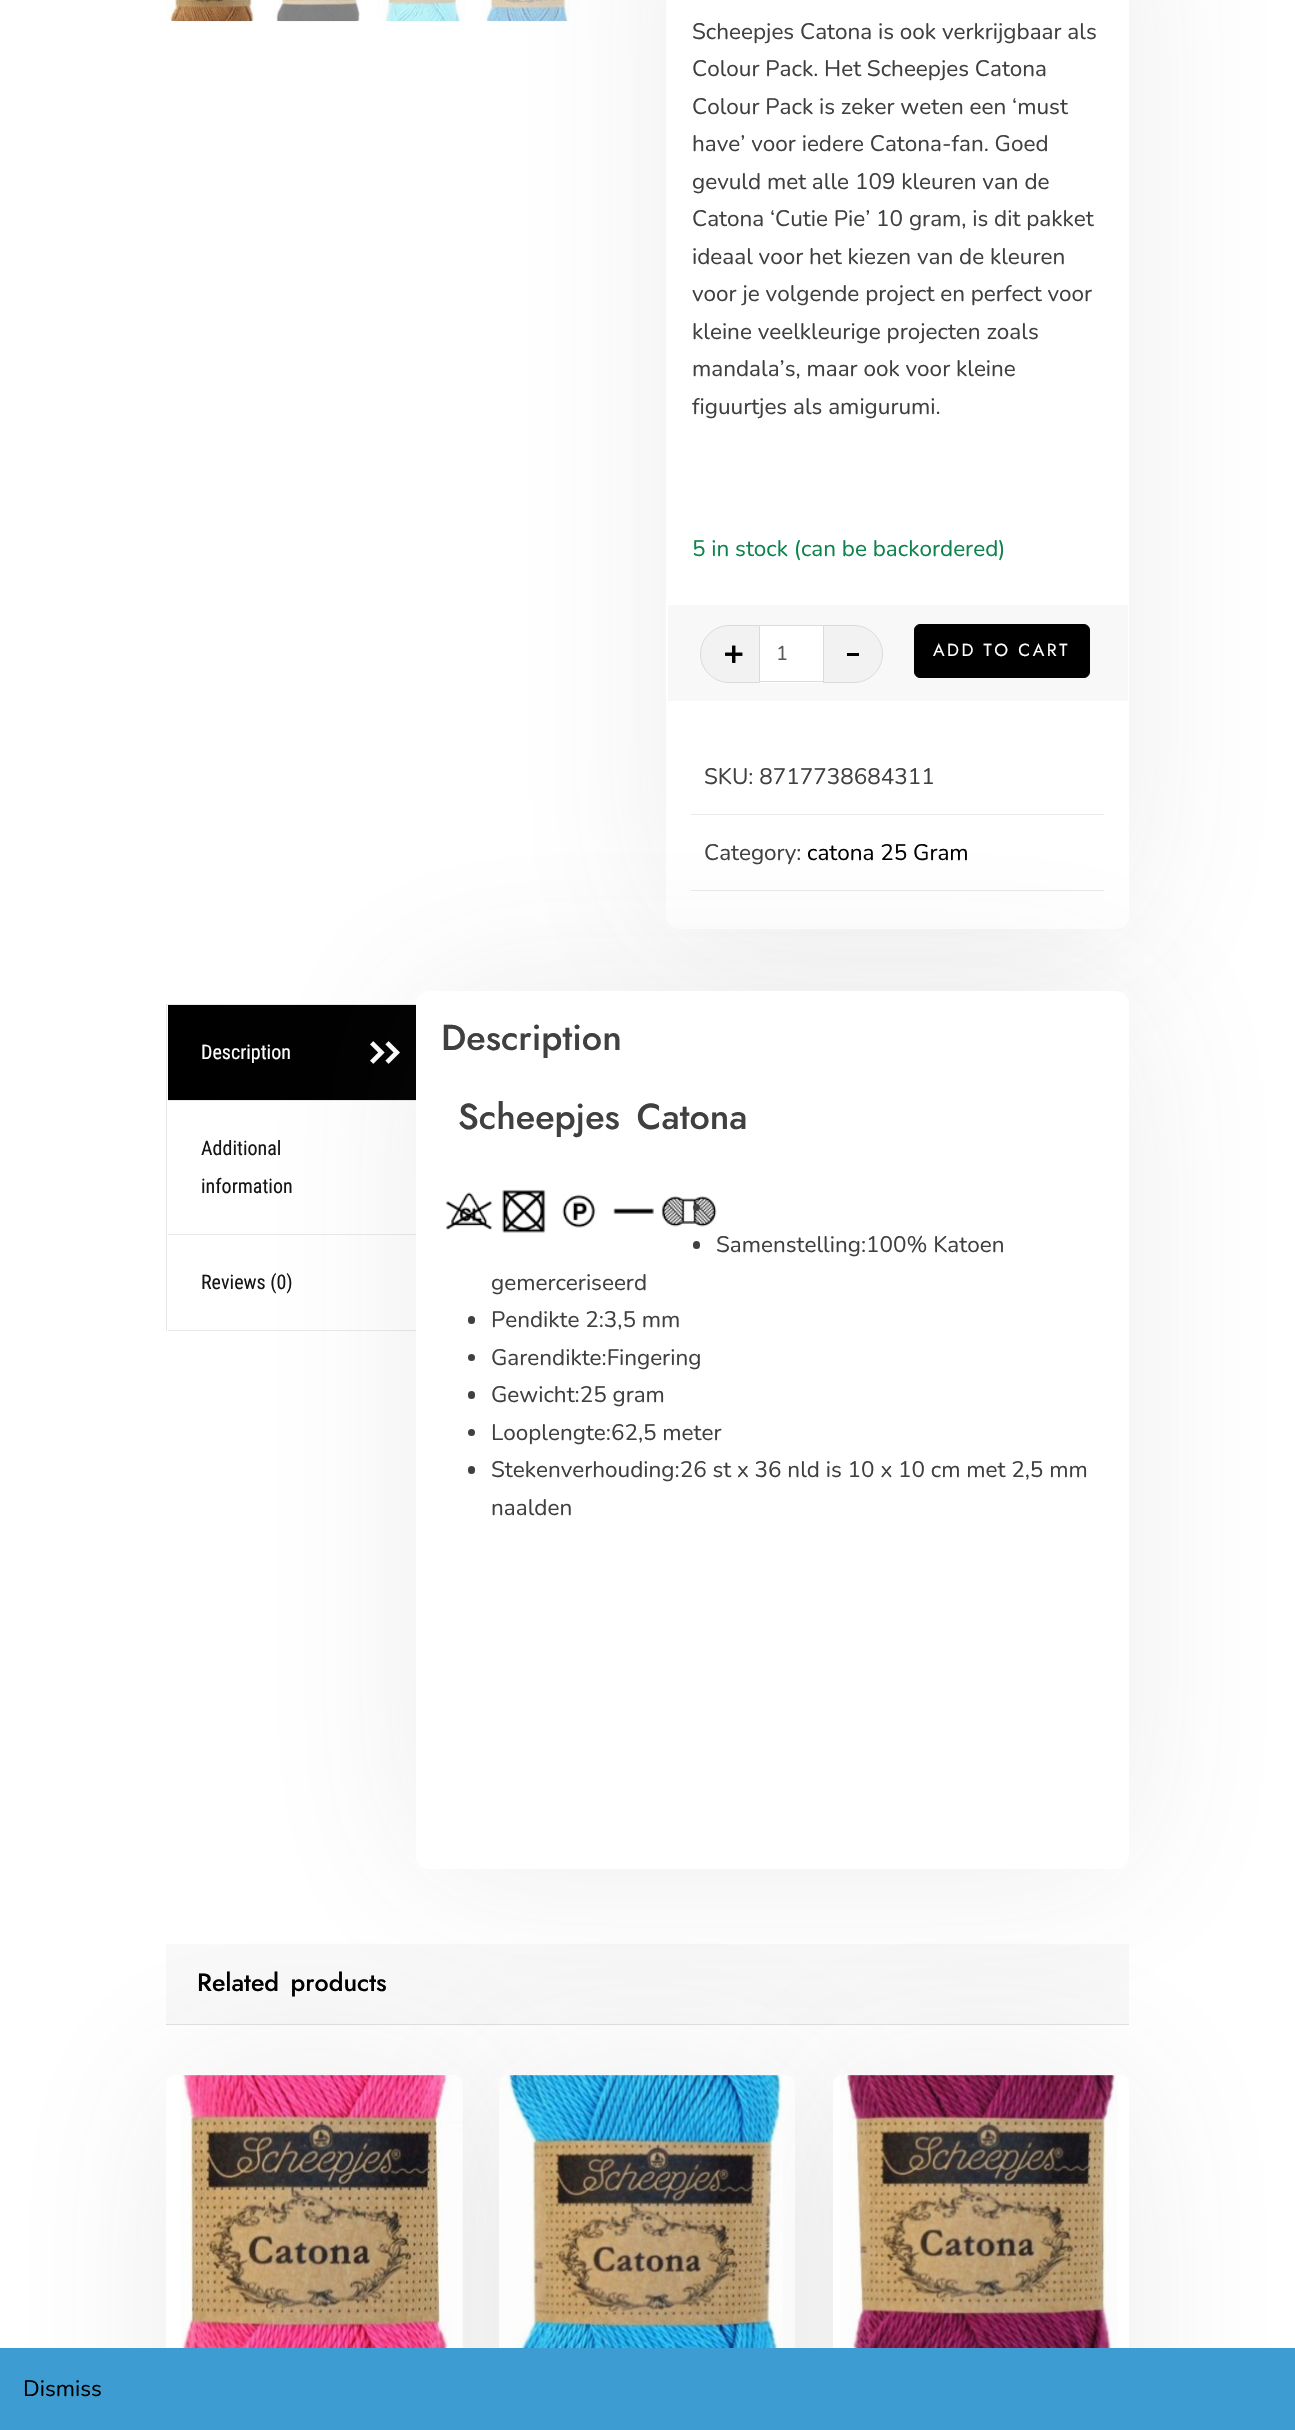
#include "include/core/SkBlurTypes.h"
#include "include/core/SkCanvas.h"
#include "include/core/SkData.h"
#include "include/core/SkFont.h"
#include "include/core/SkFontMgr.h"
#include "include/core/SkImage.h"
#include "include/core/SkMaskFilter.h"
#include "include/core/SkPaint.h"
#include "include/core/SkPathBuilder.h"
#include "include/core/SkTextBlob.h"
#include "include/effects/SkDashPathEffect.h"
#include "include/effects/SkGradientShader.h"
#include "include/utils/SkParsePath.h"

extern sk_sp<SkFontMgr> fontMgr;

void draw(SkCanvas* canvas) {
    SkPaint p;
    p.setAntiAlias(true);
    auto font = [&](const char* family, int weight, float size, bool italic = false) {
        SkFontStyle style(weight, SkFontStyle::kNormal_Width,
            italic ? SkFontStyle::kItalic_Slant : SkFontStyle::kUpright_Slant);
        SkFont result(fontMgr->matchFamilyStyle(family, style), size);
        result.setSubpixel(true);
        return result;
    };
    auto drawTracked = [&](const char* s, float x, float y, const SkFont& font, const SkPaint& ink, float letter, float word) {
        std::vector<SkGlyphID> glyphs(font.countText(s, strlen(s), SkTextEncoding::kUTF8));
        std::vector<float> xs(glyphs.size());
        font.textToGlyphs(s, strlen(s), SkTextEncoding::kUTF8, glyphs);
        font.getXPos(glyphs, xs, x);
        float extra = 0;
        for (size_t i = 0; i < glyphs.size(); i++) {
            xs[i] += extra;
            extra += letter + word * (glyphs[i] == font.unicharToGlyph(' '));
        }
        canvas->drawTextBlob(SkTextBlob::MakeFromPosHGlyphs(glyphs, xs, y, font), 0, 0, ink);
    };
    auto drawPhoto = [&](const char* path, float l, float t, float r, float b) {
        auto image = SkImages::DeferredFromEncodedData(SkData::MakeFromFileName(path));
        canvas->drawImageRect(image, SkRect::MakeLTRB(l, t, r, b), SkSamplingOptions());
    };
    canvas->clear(0xFFFFFFFF);
    drawPhoto("media/1.png", 166, 0, 255, 22);
    drawPhoto("media/2.png", 273, 0, 360, 22);
    drawPhoto("media/3.png", 377, 0, 465, 22);
    drawPhoto("media/4.png", 482, 0, 571, 22);
    p.setColor(0xFFE8E8E8);
    canvas->drawRect(SkRect::MakeLTRB(166, 1004, 423, 1005), p);
    canvas->drawRect(SkRect::MakeLTRB(168, 1100, 423, 1101), p);
    p.setColor(0x1A4A4A4A);
    p.setMaskFilter(SkMaskFilter::MakeBlur(kNormal_SkBlurStyle, 82));
    canvas->drawRoundRect(SkRect::MakeLTRB(666, -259, 1129, 929), 13, 13, p);
    p.setMaskFilter(nullptr);
    p.setColor(0xFFFFFFFF);
    canvas->drawRoundRect(SkRect::MakeLTRB(666, -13, 1129, 929), 13, 13, p);
    auto font1 = font("Nunito", 400, 22.5f);
    p.setColor(0xFF404040);
    {
        const struct { const char* s; float x, y; } items[] = {
            {"Scheepjes Catona is ook verkrijgbaar als", 692, 39},
            {"Colour Pack. Het Scheepjes Catona", 692, 76},
            {"Colour Pack is zeker weten een ‘must", 692, 114},
            {"have’ voor iedere Catona-fan. Goed", 692, 151},
            {"gevuld met alle 109 kleuren van de", 692, 189},
            {"Catona ‘Cutie Pie’ 10 gram, is dit pakket", 692, 226},
            {"ideaal voor het kiezen van de kleuren", 692, 264},
            {"voor je volgende project en perfect voor", 692, 301},
            {"kleine veelkleurige projecten zoals", 692, 339},
            {"mandala’s, maar ook voor kleine", 692, 376},
            {"figuurtjes als amigurumi.", 692, 414},
        };
        for (auto [s, x, y] : items) {
            canvas->drawString(s, x, y, font1, p);
        }
    }
    p.setColor(0xFF0F834D);
    canvas->drawString("5 in stock (can be backordered)", 692, 556, font1, p);
    p.setColor(0xFFF8F8F8);
    canvas->drawRect(SkRect::MakeLTRB(668, 605, 1128, 701), p);
    p.setColor(0xFFF1F2F1);
    canvas->drawPath(SkPathBuilder().moveTo(729, 625.5f).lineTo(759.5f, 625.5f).lineTo(759.5f, 682.5f).lineTo(729, 682.5f).cubicTo(713.5f, 682.5f, 700.5f, 669.5f, 700.5f, 654).cubicTo(700.5f, 638.5f, 713.5f, 625.5f, 729, 625.5f).close().detach(), p);
    p.setStyle(SkPaint::kStroke_Style);
    p.setStrokeWidth(1);
    p.setColor(0xFFDBDBDB);
    canvas->drawPath(SkPathBuilder().moveTo(729, 625.5f).lineTo(759.5f, 625.5f).lineTo(759.5f, 682.5f).lineTo(729, 682.5f).cubicTo(713.5f, 682.5f, 700.5f, 669.5f, 700.5f, 654).cubicTo(700.5f, 638.5f, 713.5f, 625.5f, 729, 625.5f).close().detach(), p);
    drawPhoto("media/5.png", 725, 645, 743, 663);
    p.setStyle(SkPaint::kFill_Style);
    {
        const struct { float l, t, r, b; SkColor color; } items[] = {
            {760, 626, 823, 683, 0xFFFFFFFF},
            {760, 625, 823, 626, 0xFFDBDBDB},
            {760, 681, 823, 682, 0xFFDBDBDB},
        };
        for (auto [l, t, r, b, color] : items) {
            p.setColor(color);
            canvas->drawRect(SkRect::MakeLTRB(l, t, r, b), p);
        }
    }
    auto font2 = font("Nunito", 400, 20);
    p.setColor(0xFF55595D);
    canvas->drawString("1", 776, 660, font2, p);
    p.setColor(0xFFF1F2F1);
    canvas->drawPath(SkPathBuilder().moveTo(823.5f, 625.5f).lineTo(854, 625.5f).cubicTo(869.5f, 625.5f, 882.5f, 638.5f, 882.5f, 654).cubicTo(882.5f, 669.5f, 869.5f, 682.5f, 854, 682.5f).lineTo(823.5f, 682.5f).close().detach(), p);
    p.setStyle(SkPaint::kStroke_Style);
    p.setColor(0xFFDBDBDB);
    canvas->drawPath(SkPathBuilder().moveTo(823.5f, 625.5f).lineTo(854, 625.5f).cubicTo(869.5f, 625.5f, 882.5f, 638.5f, 882.5f, 654).cubicTo(882.5f, 669.5f, 869.5f, 682.5f, 854, 682.5f).lineTo(823.5f, 682.5f).close().detach(), p);
    p.setStyle(SkPaint::kFill_Style);
    p.setColor(0xFF000000);
    canvas->drawRect(SkRect::MakeLTRB(847, 653, 859, 656), p);
    canvas->drawRoundRect(SkRect::MakeLTRB(914.5f, 624.5f, 1089.5f, 677.5f), 5.5f, 5.5f, p);
    p.setStyle(SkPaint::kStroke_Style);
    canvas->drawRoundRect(SkRect::MakeLTRB(914.5f, 624.5f, 1089.5f, 677.5f), 5.5f, 5.5f, p);
    auto font3 = font("Jost", 400, 17.5f);
    p.setStyle(SkPaint::kFill_Style);
    p.setColor(0xFFFFFFFF);
    drawTracked("ADD TO CART", 933, 656, font3, p, 2.5f, 0);
    p.setColor(0xFFE9E9E9);
    canvas->drawRect(SkRect::MakeLTRB(691, 814, 1104, 815), p);
    p.setColor(0xFF404040);
    canvas->drawString("SKU: 8717738684311", 704, 784, font1, p);
    p.setColor(0xFFE9E9E9);
    canvas->drawRect(SkRect::MakeLTRB(691, 890, 1104, 891), p);
    p.setColor(0xFF404040);
    canvas->drawString("Category:", 704, 860, font1, p);
    p.setColor(0xFF000000);
    canvas->drawString("catona 25 Gram", 807, 860, font1, p);
    p.setColor(0xFFE8E8E8);
    canvas->drawRect(SkRect::MakeLTRB(166, 1004, 167, 1331), p);
    p.setColor(0xFF000000);
    canvas->drawRect(SkRect::MakeLTRB(168, 1005, 416, 1100), p);
    auto font4 = font("Roboto Condensed", 400, 20);
    p.setColor(0xFFFFFFFF);
    canvas->drawString("Description", 201, 1059, font4, p);
    drawPhoto("media/6.png", 370, 1041, 400, 1064);
    p.setColor(0xFFE8E8E8);
    canvas->drawRect(SkRect::MakeLTRB(168, 1234, 423, 1235), p);
    p.setColor(0xFF151515);
    canvas->drawString("Additional", 201, 1155, font4, p);
    canvas->drawString("information", 201, 1193, font4, p);
    p.setColor(0xFFE8E8E8);
    canvas->drawRect(SkRect::MakeLTRB(168, 1330, 423, 1331), p);
    p.setColor(0xFF151515);
    canvas->drawString("Reviews (0)", 201, 1289, font4, p);
    p.setColor(0xFFF9F9F9);
    canvas->drawRect(SkRect::MakeLTRB(166, 1944, 1129, 2024), p);
    p.setColor(0xFFE0E0E0);
    canvas->drawRect(SkRect::MakeLTRB(166, 2024, 1129, 2025), p);
    p.setColor(0x1A4A4A4A);
    p.setMaskFilter(SkMaskFilter::MakeBlur(kNormal_SkBlurStyle, 82));
    canvas->drawRoundRect(SkRect::MakeLTRB(166, 2075, 463, 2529), 9, 9, p);
    p.setMaskFilter(nullptr);
    p.setColor(0xFFFFFFFF);
    canvas->drawRoundRect(SkRect::MakeLTRB(166, 2075, 463, 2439), 9, 9, p);
    p.setColor(0x1A4A4A4A);
    p.setMaskFilter(SkMaskFilter::MakeBlur(kNormal_SkBlurStyle, 82));
    canvas->drawRoundRect(SkRect::MakeLTRB(499, 2075, 795, 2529), 9, 9, p);
    p.setMaskFilter(nullptr);
    drawPhoto("media/12.png", 181, 2075, 462, 2348);
    p.setColor(0xFFFFFFFF);
    canvas->drawRoundRect(SkRect::MakeLTRB(499, 2075, 795, 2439), 9, 9, p);
    p.setColor(0x1A4A4A4A);
    p.setMaskFilter(SkMaskFilter::MakeBlur(kNormal_SkBlurStyle, 82));
    canvas->drawRoundRect(SkRect::MakeLTRB(833, 2075, 1129, 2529), 9, 9, p);
    p.setMaskFilter(nullptr);
    drawPhoto("media/13.png", 499, 2075, 783, 2348);
    p.setColor(0xFFFFFFFF);
    canvas->drawRoundRect(SkRect::MakeLTRB(833, 2075, 1129, 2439), 9, 9, p);
    drawPhoto("media/14.png", 840, 2075, 1118, 2348);
    p.setColor(0x1A4A4A4A);
    p.setMaskFilter(SkMaskFilter::MakeBlur(kNormal_SkBlurStyle, 82));
    canvas->drawRoundRect(SkRect::MakeLTRB(416, 991, 1129, 1869), 13, 13, p);
    p.setMaskFilter(nullptr);
    p.setColor(0xFFFFFFFF);
    canvas->drawRoundRect(SkRect::MakeLTRB(416, 991, 1129, 1869), 13, 13, p);
    auto font5 = font("Jost", 500, 36);
    p.setColor(0xFF404040);
    canvas->drawString("Description", 441, 1050, font5, p);
    drawTracked("Scheepjes Catona", 458, 1129, font5, p, 0, 6);
    drawPhoto("media/7.png", 446, 1192, 493, 1230);
    drawPhoto("media/8.png", 502, 1189, 546, 1233);
    drawPhoto("media/9.png", 562, 1194, 596, 1228);
    drawPhoto("media/10.png", 613, 1208, 654, 1214);
    drawPhoto("media/11.png", 661, 1196, 717, 1227);
    canvas->drawCircle(696.5f, 1207.5f, 3.5f, p);
    canvas->drawRoundRect(SkRect::MakeLTRB(693, 1241, 700, 1249), 3.5f, 3.5f, p);
    canvas->drawString("Samenstelling:100% Katoen", 716, 1252, font1, p);
    canvas->drawString("gemerceriseerd", 491, 1290, font1, p);
    canvas->drawRoundRect(SkRect::MakeLTRB(468, 1316, 475, 1324), 3.5f, 3.5f, p);
    canvas->drawString("Pendikte 2:3,5 mm", 491, 1327, font1, p);
    canvas->drawCircle(471.5f, 1357.5f, 3.5f, p);
    canvas->drawString("Garendikte:Fingering", 491, 1365, font1, p);
    canvas->drawRoundRect(SkRect::MakeLTRB(468, 1391, 475, 1399), 3.5f, 3.5f, p);
    canvas->drawString("Gewicht:25 gram", 491, 1402, font1, p);
    canvas->drawCircle(471.5f, 1432.5f, 3.5f, p);
    canvas->drawString("Looplengte:62,5 meter", 491, 1440, font1, p);
    canvas->drawRoundRect(SkRect::MakeLTRB(468, 1466, 475, 1474), 3.5f, 3.5f, p);
    canvas->drawString("Stekenverhouding:26 st x 36 nld is 10 x 10 cm met 2,5 mm", 491, 1477, font1, p);
    canvas->drawString("naalden", 491, 1515, font1, p);
    auto font6 = font("Jost", 500, 25);
    p.setColor(0xFF000000);
    drawTracked("Related products", 197, 1991, font6, p, 0, 4);
    p.setColor(0xFF3D9CD2);
    canvas->drawRect(SkRect::MakeLTRB(0, 2348, 1295, 2430), p);
    p.setColor(0xFF000000);
    canvas->drawString("Dismiss", 23, 2396, font1, p);
}
